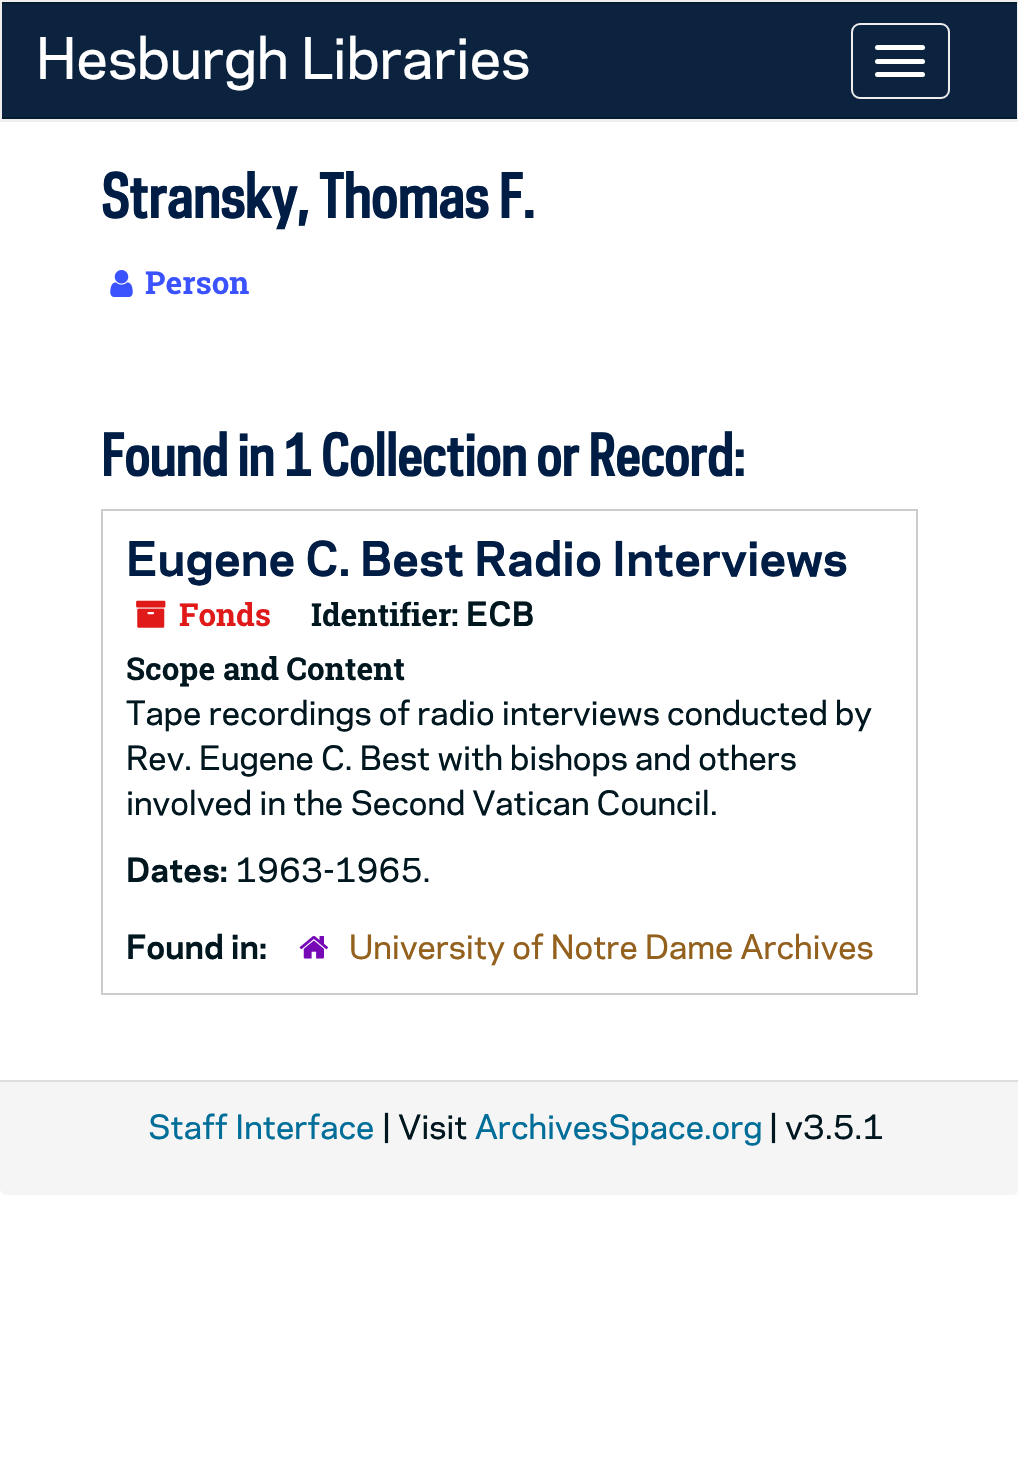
#include "include/core/SkBlurTypes.h"
#include "include/core/SkCanvas.h"
#include "include/core/SkData.h"
#include "include/core/SkFont.h"
#include "include/core/SkFontMgr.h"
#include "include/core/SkImage.h"
#include "include/core/SkMaskFilter.h"
#include "include/core/SkPaint.h"
#include "include/core/SkPathBuilder.h"
#include "include/core/SkTextBlob.h"
#include "include/effects/SkDashPathEffect.h"
#include "include/effects/SkGradientShader.h"
#include "include/utils/SkParsePath.h"

extern sk_sp<SkFontMgr> fontMgr;

void draw(SkCanvas* canvas) {
    SkPaint p;
    p.setAntiAlias(true);
    auto font = [&](const char* family, int weight, float size, bool italic = false) {
        SkFontStyle style(weight, SkFontStyle::kNormal_Width,
            italic ? SkFontStyle::kItalic_Slant : SkFontStyle::kUpright_Slant);
        SkFont result(fontMgr->matchFamilyStyle(family, style), size);
        result.setSubpixel(true);
        return result;
    };
    auto drawPhoto = [&](const char* path, float l, float t, float r, float b) {
        auto image = SkImages::DeferredFromEncodedData(SkData::MakeFromFileName(path));
        canvas->drawImageRect(image, SkRect::MakeLTRB(l, t, r, b), SkSamplingOptions());
    };
    canvas->clear(0xFFFFFFFF);
    {
        const struct { float l, t, r, b; SkColor color; } items[] = {
            {0, 0, 1018, 122, 0xFFEEEEEE},
            {2, 4, 1017, 117, 0xFF0C2340},
            {2, 2, 1017, 4, 0xFF041C2F},
            {2, 117, 1017, 119, 0xFF041C2F},
        };
        for (auto [l, t, r, b, color] : items) {
            p.setColor(color);
            canvas->drawRect(SkRect::MakeLTRB(l, t, r, b), p);
        }
    }
    p.setStyle(SkPaint::kStroke_Style);
    p.setStrokeWidth(2);
    p.setColor(0xFFEEEEEE);
    canvas->drawRoundRect(SkRect::MakeLTRB(852, 24, 949, 98), 8, 8, p);
    p.setStyle(SkPaint::kFill_Style);
    p.setColor(0xFFFFFFFF);
    canvas->drawRoundRect(SkRect::MakeLTRB(875, 45, 925, 50), 2.5f, 2.5f, p);
    canvas->drawRoundRect(SkRect::MakeLTRB(875, 59, 925, 64), 2.5f, 2.5f, p);
    canvas->drawRoundRect(SkRect::MakeLTRB(875, 72, 925, 77), 2.5f, 2.5f, p);
    auto font1 = font("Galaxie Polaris", 400, 54);
    canvas->drawString("Hesburgh Libraries", 36, 79, font1, p);
    auto font2 = font("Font", 700, 56.75f);
    p.setColor(0xFF001E45);
    canvas->drawString("Stransky, Thomas F.", 101, 218, font2, p);
    drawPhoto("media/1.png", 110, 270, 133, 297);
    auto font3 = font("Roboto Slab", 700, 31.5f);
    p.setColor(0xFF3B52FF);
    canvas->drawString("Person", 145, 294, font3, p);
    auto font4 = font("Font", 700, 54);
    p.setColor(0xFF001E45);
    canvas->drawString("Found in 1 Collection or Record:", 101, 476, font4, p);
    p.setStyle(SkPaint::kStroke_Style);
    p.setColor(0xFFCCCCCC);
    canvas->drawRect(SkRect::MakeLTRB(102, 510, 917, 994), p);
    auto font5 = font("Galaxie Polaris", 700, 45);
    p.setStyle(SkPaint::kFill_Style);
    p.setColor(0xFF001E45);
    canvas->drawString("Eugene C. Best Radio Interviews", 126, 576, font5, p);
    drawPhoto("media/2.png", 136, 600, 166, 628);
    p.setColor(0xFFE01919);
    canvas->drawString("Fonds", 179, 626, font3, p);
    p.setColor(0xFF00171F);
    canvas->drawString("Identifier:", 311, 626, font3, p);
    auto font6 = font("Galaxie Polaris", 700, 31.5f);
    canvas->drawString("ECB", 466, 626, font6, p);
    canvas->drawString("Scope and Content", 126, 680, font3, p);
    auto font7 = font("Galaxie Polaris", 400, 31.5f);
    {
        const struct { const char* s; float x, y; } items[] = {
            {"Tape recordings of radio interviews conducted by", 126, 725},
            {"Rev. Eugene C. Best with bishops and others", 126, 770},
            {"involved in the Second Vatican Council.", 126, 815},
        };
        for (auto [s, x, y] : items) {
            canvas->drawString(s, x, y, font7, p);
        }
    }
    canvas->drawString("Dates:", 126, 882, font6, p);
    canvas->drawString("1963-1965.", 235, 882, font7, p);
    canvas->drawString("Found in:", 126, 959, font6, p);
    drawPhoto("media/3.png", 299, 936, 328, 959);
    p.setColor(0xFF93601D);
    canvas->drawString("University of Notre Dame Archives", 349, 959, font7, p);
    p.setColor(0xFFF5F5F5);
    canvas->drawPath(SkPathBuilder().moveTo(0, 1080).lineTo(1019, 1080).lineTo(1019, 1188).cubicTo(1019, 1192, 1016, 1195, 1012, 1195).lineTo(7, 1195).cubicTo(3, 1195, 0, 1192, 0, 1188).close().detach(), p);
    p.setColor(0xFFDDDDDD);
    canvas->drawRect(SkRect::MakeLTRB(0, 1080, 1018, 1082), p);
    p.setColor(0xFF006E99);
    canvas->drawString("Staff Interface", 148, 1139, font7, p);
    p.setColor(0xFF00171F);
    canvas->drawString("| Visit", 382, 1139, font7, p);
    p.setColor(0xFF006E99);
    canvas->drawString("ArchivesSpace.org", 475, 1139, font7, p);
    p.setColor(0xFF00171F);
    canvas->drawString("| v3.5.1", 769, 1139, font7, p);
}
